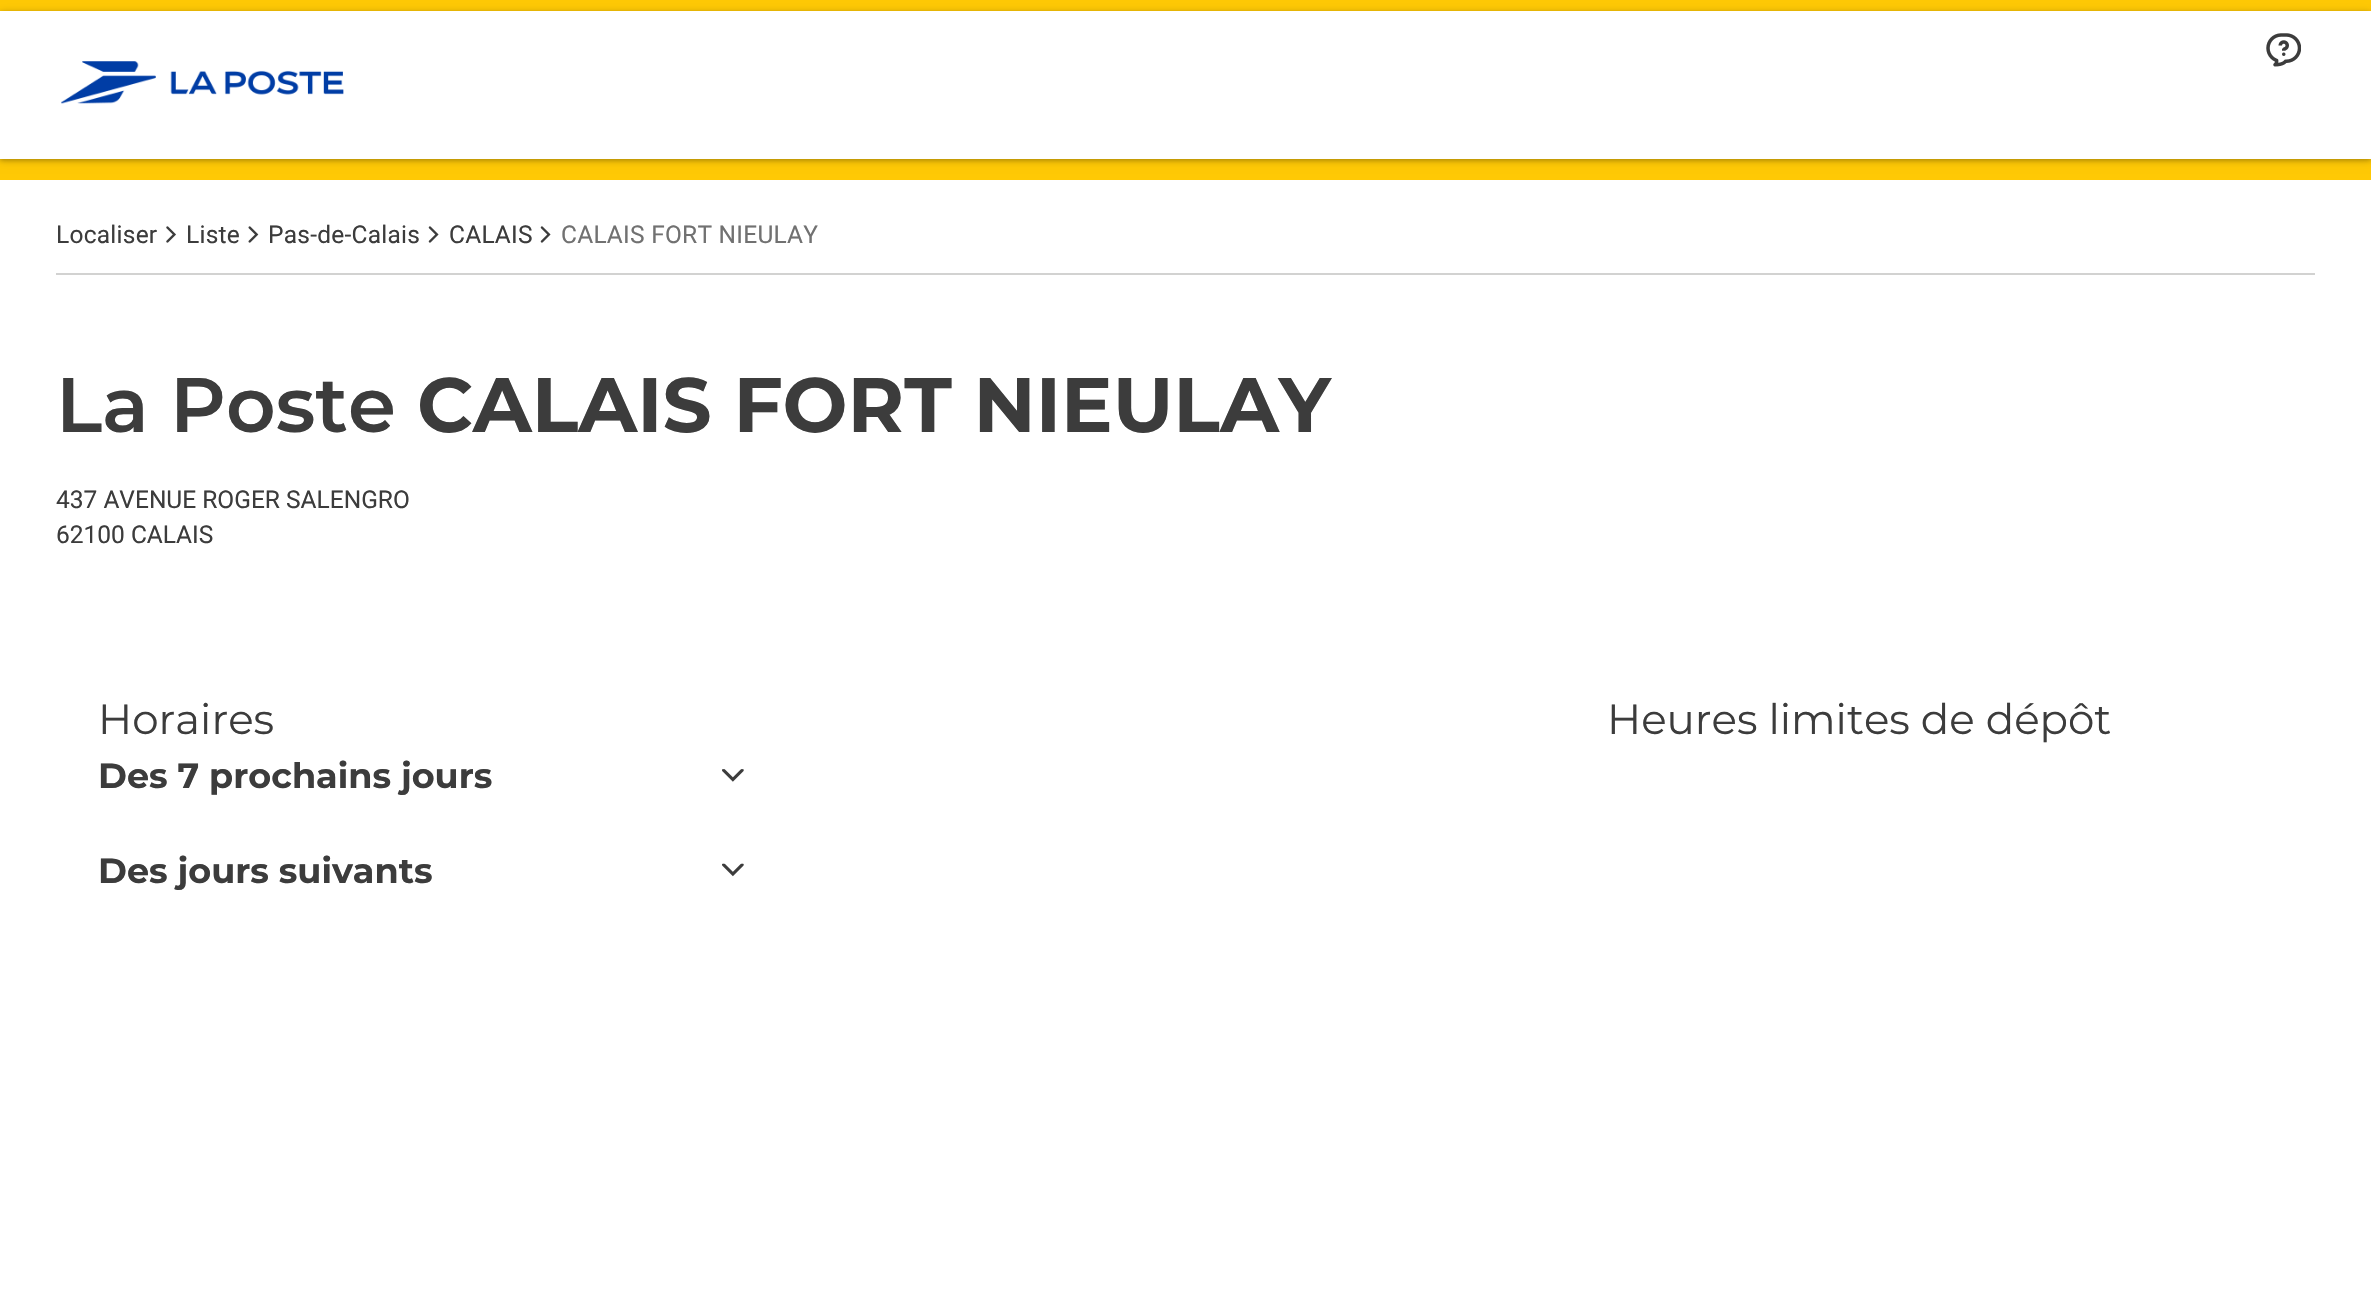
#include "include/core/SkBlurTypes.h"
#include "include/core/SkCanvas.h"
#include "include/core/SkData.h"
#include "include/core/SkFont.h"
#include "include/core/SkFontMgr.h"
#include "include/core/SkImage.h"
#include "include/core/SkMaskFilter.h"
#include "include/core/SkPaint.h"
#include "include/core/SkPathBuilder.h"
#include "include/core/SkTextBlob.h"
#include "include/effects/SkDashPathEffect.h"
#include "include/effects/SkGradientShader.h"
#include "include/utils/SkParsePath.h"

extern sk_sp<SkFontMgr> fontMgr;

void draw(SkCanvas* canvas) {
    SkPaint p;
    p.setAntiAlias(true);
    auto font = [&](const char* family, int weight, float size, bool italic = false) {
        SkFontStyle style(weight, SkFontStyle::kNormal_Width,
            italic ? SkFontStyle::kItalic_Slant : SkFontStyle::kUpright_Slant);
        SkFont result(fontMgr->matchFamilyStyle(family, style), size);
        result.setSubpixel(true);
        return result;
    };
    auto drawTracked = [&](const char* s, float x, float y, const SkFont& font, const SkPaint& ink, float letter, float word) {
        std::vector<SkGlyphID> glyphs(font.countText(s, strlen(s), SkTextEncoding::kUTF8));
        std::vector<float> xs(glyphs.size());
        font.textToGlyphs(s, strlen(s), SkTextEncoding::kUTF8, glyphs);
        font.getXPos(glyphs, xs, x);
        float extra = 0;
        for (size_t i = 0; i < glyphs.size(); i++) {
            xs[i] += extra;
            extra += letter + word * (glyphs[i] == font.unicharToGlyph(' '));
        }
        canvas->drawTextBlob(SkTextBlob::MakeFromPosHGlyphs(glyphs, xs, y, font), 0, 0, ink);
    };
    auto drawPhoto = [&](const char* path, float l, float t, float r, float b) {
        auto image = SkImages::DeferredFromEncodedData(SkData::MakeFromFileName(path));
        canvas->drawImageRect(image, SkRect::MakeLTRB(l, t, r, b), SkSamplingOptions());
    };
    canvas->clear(0xFFFFFFFF);
    p.setColor(0xFFFFC905);
    canvas->drawRect(SkRect::MakeLTRB(0, 0, 2371, 180), p);
    p.setColor(0x21000000);
    p.setMaskFilter(SkMaskFilter::MakeBlur(kNormal_SkBlurStyle, 4.5f));
    canvas->drawRect(SkRect::MakeLTRB(0, 12, 2371, 161), p);
    p.setMaskFilter(nullptr);
    p.setColor(0x33000000);
    p.setMaskFilter(SkMaskFilter::MakeBlur(kNormal_SkBlurStyle, 2));
    canvas->drawRect(SkRect::MakeLTRB(0, 12, 2371, 161), p);
    p.setMaskFilter(nullptr);
    p.setColor(0xFFFFFFFF);
    canvas->drawRect(SkRect::MakeLTRB(0, 11, 2371, 159), p);
    drawPhoto("media/1.png", 2266, 33, 2301, 67);
    drawPhoto("media/2.png", 61, 61, 344, 104);
    p.setColor(0xFFD2D2D1);
    canvas->drawRect(SkRect::MakeLTRB(56, 273, 2315, 275), p);
    auto font1 = font("Roboto", 400, 24.5f);
    p.setColor(0xFF3C3C3C);
    drawTracked("Localiser", 56, 243, font1, p, 0.25f, 0);
    drawPhoto("media/3.png", 166, 226, 176, 243);
    drawTracked("Liste", 186, 243, font1, p, 0.25f, 0);
    drawPhoto("media/4.png", 248, 226, 259, 243);
    drawTracked("Pas-de-Calais", 268, 243, font1, p, 0.25f, 0);
    drawPhoto("media/5.png", 428, 226, 439, 243);
    drawTracked("CALAIS", 449, 243, font1, p, 0.25f, 0);
    drawPhoto("media/5.png", 540, 226, 551, 243);
    p.setColor(0xFF717171);
    drawTracked("CALAIS FORT NIEULAY", 561, 243, font1, p, 0.25f, 0);
    auto font2 = font("Montserrat", 600, 77);
    p.setColor(0xFF3C3C3C);
    canvas->drawString("La Poste", 56, 432, font2, p);
    auto font3 = font("Montserrat", 700, 77);
    canvas->drawString("CALAIS FORT NIEULAY", 417, 432, font3, p);
    canvas->drawString("437 AVENUE ROGER SALENGRO", 56, 508, font1, p);
    canvas->drawString("62100 CALAIS", 56, 543, font1, p);
    auto font4 = font("Montserrat", 400, 42);
    canvas->drawString("Horaires", 98, 734, font4, p);
    auto font5 = font("Montserrat", 700, 35);
    canvas->drawString("Des 7 prochains jours", 98, 788, font5, p);
    drawPhoto("media/6.png", 722, 769, 744, 782);
    canvas->drawString("Des jours suivants", 98, 883, font5, p);
    drawPhoto("media/7.png", 722, 863, 744, 877);
    canvas->drawString("Heures limites de dépôt", 1607, 734, font4, p);
}
